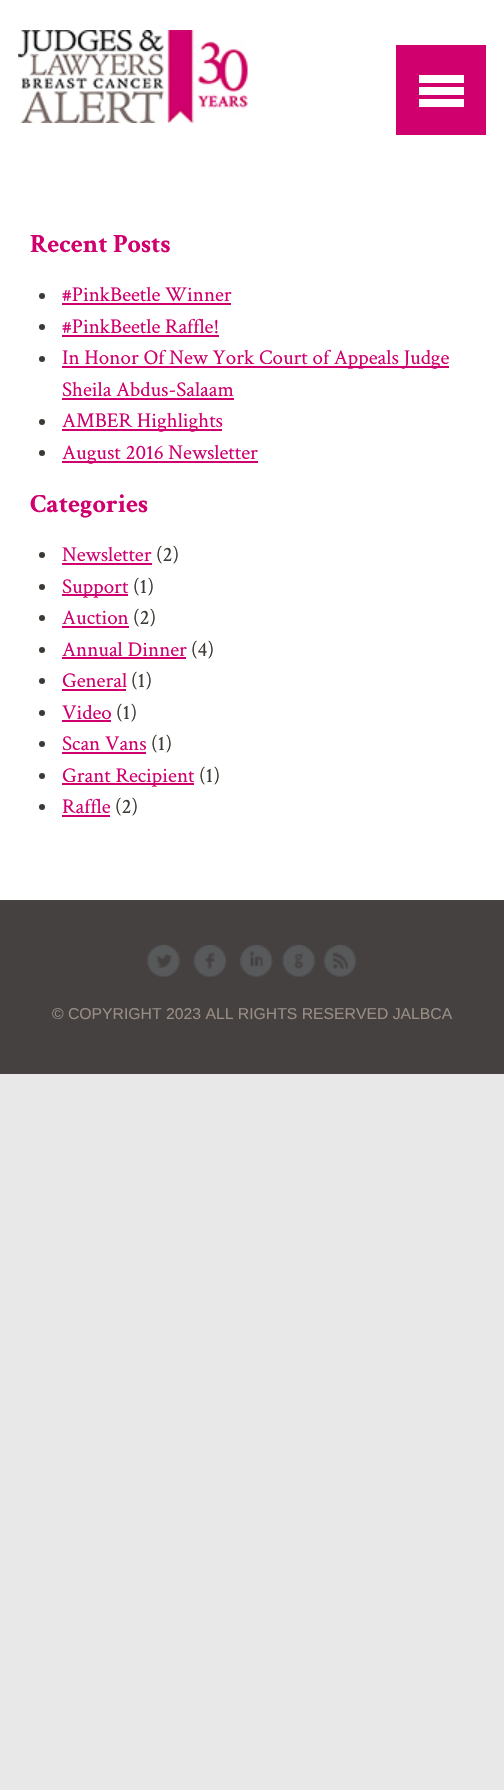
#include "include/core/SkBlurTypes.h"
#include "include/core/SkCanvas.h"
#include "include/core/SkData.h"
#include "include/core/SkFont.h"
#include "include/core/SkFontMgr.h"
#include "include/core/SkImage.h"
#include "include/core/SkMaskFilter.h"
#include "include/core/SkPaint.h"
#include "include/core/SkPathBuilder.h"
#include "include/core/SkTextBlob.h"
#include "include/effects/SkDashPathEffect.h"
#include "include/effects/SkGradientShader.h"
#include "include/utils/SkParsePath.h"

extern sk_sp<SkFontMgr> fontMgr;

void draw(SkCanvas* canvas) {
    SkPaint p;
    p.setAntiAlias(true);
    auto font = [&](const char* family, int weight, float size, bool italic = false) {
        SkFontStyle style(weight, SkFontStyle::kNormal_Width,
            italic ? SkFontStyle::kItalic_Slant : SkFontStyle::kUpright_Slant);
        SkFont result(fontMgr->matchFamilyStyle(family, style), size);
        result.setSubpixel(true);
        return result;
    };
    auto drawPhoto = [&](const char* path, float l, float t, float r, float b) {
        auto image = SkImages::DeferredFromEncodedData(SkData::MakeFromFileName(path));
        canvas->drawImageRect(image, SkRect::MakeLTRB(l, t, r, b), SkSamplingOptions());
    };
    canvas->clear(0xFFE8E8E8);
    p.setColor(0xFFFFFFFF);
    canvas->drawRect(SkRect::MakeLTRB(0, 0, 504, 900), p);
    drawPhoto("media/1.png", 18, 30, 248, 123);
    {
        const struct { float l, t, r, b; SkColor color; } items[] = {
            {396, 45, 486, 135, 0xFFD0006F},
            {419, 75, 464, 83, 0xFFFFFFFF},
            {419, 87, 464, 95, 0xFFFFFFFF},
            {419, 99, 464, 107, 0xFFFFFFFF},
        };
        for (auto [l, t, r, b, color] : items) {
            p.setColor(color);
            canvas->drawRect(SkRect::MakeLTRB(l, t, r, b), p);
        }
    }
    auto font1 = font("Crimson Text", 700, 26.25f);
    p.setColor(0xFFD0006F);
    canvas->drawString("Recent Posts", 30, 252, font1, p);
    p.setColor(0xFF3D3A35);
    canvas->drawCircle(42, 296, 3, p);
    auto font2 = font("Crimson Text", 400, 21);
    p.setColor(0xFFD0006F);
    canvas->drawString("#PinkBeetle Winner", 62, 301, font2, p);
    canvas->drawRect(SkRect::MakeLTRB(62, 303, 231, 305), p);
    p.setColor(0xFF3D3A35);
    canvas->drawCircle(42, 327, 3, p);
    p.setColor(0xFFD0006F);
    canvas->drawString("#PinkBeetle Raffle!", 62, 333, font2, p);
    canvas->drawRect(SkRect::MakeLTRB(62, 335, 219, 337), p);
    p.setColor(0xFF3D3A35);
    canvas->drawCircle(42, 359, 3, p);
    p.setColor(0xFFD0006F);
    canvas->drawRect(SkRect::MakeLTRB(62, 366, 449, 368), p);
    canvas->drawString("In Honor Of New York Court of Appeals Judge", 62, 364, font2, p);
    canvas->drawString("Sheila Abdus-Salaam", 62, 396, font2, p);
    canvas->drawRect(SkRect::MakeLTRB(62, 398, 234, 400), p);
    p.setColor(0xFF3D3A35);
    canvas->drawCircle(42, 422, 3, p);
    p.setColor(0xFFD0006F);
    canvas->drawRect(SkRect::MakeLTRB(62, 429, 222, 431), p);
    canvas->drawString("AMBER Highlights", 62, 427, font2, p);
    p.setColor(0xFF3D3A35);
    canvas->drawCircle(42, 453, 3, p);
    p.setColor(0xFFD0006F);
    canvas->drawRect(SkRect::MakeLTRB(62, 461, 258, 463), p);
    canvas->drawString("August 2016 Newsletter", 62, 459, font2, p);
    canvas->drawString("Categories", 30, 512, font1, p);
    p.setColor(0xFF3D3A35);
    canvas->drawCircle(42, 555, 3, p);
    p.setColor(0xFFD0006F);
    canvas->drawString("Newsletter", 62, 561, font2, p);
    canvas->drawRect(SkRect::MakeLTRB(62, 563, 152, 565), p);
    p.setColor(0xFF3D3A35);
    canvas->drawString("(2)", 156, 561, font2, p);
    canvas->drawCircle(42, 587, 3, p);
    p.setColor(0xFFD0006F);
    canvas->drawRect(SkRect::MakeLTRB(62, 594, 128, 596), p);
    canvas->drawString("Support", 62, 593, font2, p);
    p.setColor(0xFF3D3A35);
    canvas->drawString("(1)", 133, 593, font2, p);
    canvas->drawCircle(42, 618, 3, p);
    p.setColor(0xFFD0006F);
    canvas->drawString("Auction", 62, 624, font2, p);
    canvas->drawRect(SkRect::MakeLTRB(62, 626, 129, 628), p);
    p.setColor(0xFF3D3A35);
    canvas->drawString("(2)", 133, 624, font2, p);
    canvas->drawCircle(42, 650, 3, p);
    p.setColor(0xFFD0006F);
    canvas->drawString("Annual Dinner", 62, 656, font2, p);
    canvas->drawRect(SkRect::MakeLTRB(62, 657, 186, 659), p);
    p.setColor(0xFF3D3A35);
    canvas->drawString("(4)", 191, 656, font2, p);
    canvas->drawCircle(42, 681, 3, p);
    p.setColor(0xFFD0006F);
    canvas->drawString("General", 62, 687, font2, p);
    canvas->drawRect(SkRect::MakeLTRB(62, 689, 126, 691), p);
    p.setColor(0xFF3D3A35);
    canvas->drawString("(1)", 131, 687, font2, p);
    canvas->drawCircle(42, 713, 3, p);
    p.setColor(0xFFD0006F);
    canvas->drawString("Video", 62, 719, font2, p);
    canvas->drawRect(SkRect::MakeLTRB(62, 720, 111, 722), p);
    p.setColor(0xFF3D3A35);
    canvas->drawString("(1)", 116, 719, font2, p);
    canvas->drawCircle(42, 744, 3, p);
    p.setColor(0xFFD0006F);
    canvas->drawString("Scan Vans", 62, 750, font2, p);
    canvas->drawRect(SkRect::MakeLTRB(62, 752, 146, 754), p);
    p.setColor(0xFF3D3A35);
    canvas->drawString("(1)", 151, 750, font2, p);
    canvas->drawCircle(42, 776, 3, p);
    p.setColor(0xFFD0006F);
    canvas->drawRect(SkRect::MakeLTRB(62, 783, 194, 785), p);
    canvas->drawString("Grant Recipient", 62, 782, font2, p);
    p.setColor(0xFF3D3A35);
    canvas->drawString("(1)", 199, 782, font2, p);
    canvas->drawCircle(42, 807, 3, p);
    p.setColor(0xFFD0006F);
    canvas->drawString("Raffle", 62, 813, font2, p);
    canvas->drawRect(SkRect::MakeLTRB(62, 815, 110, 817), p);
    p.setColor(0xFF3D3A35);
    canvas->drawString("(2)", 115, 813, font2, p);
    p.setColor(0xFF464141);
    canvas->drawRect(SkRect::MakeLTRB(0, 900, 504, 1074), p);
    drawPhoto("media/2.png", 147, 945, 180, 977);
    drawPhoto("media/3.png", 193, 945, 227, 977);
    drawPhoto("media/4.png", 240, 945, 273, 977);
    drawPhoto("media/5.png", 282, 945, 315, 977);
    drawPhoto("media/6.png", 324, 945, 356, 977);
    auto font3 = font("Liberation Sans", 400, 15.75f);
    p.setColor(0xFF988D84);
    canvas->drawString("© COPYRIGHT 2023 ALL RIGHTS RESERVED JALBCA", 52, 1019, font3, p);
}
